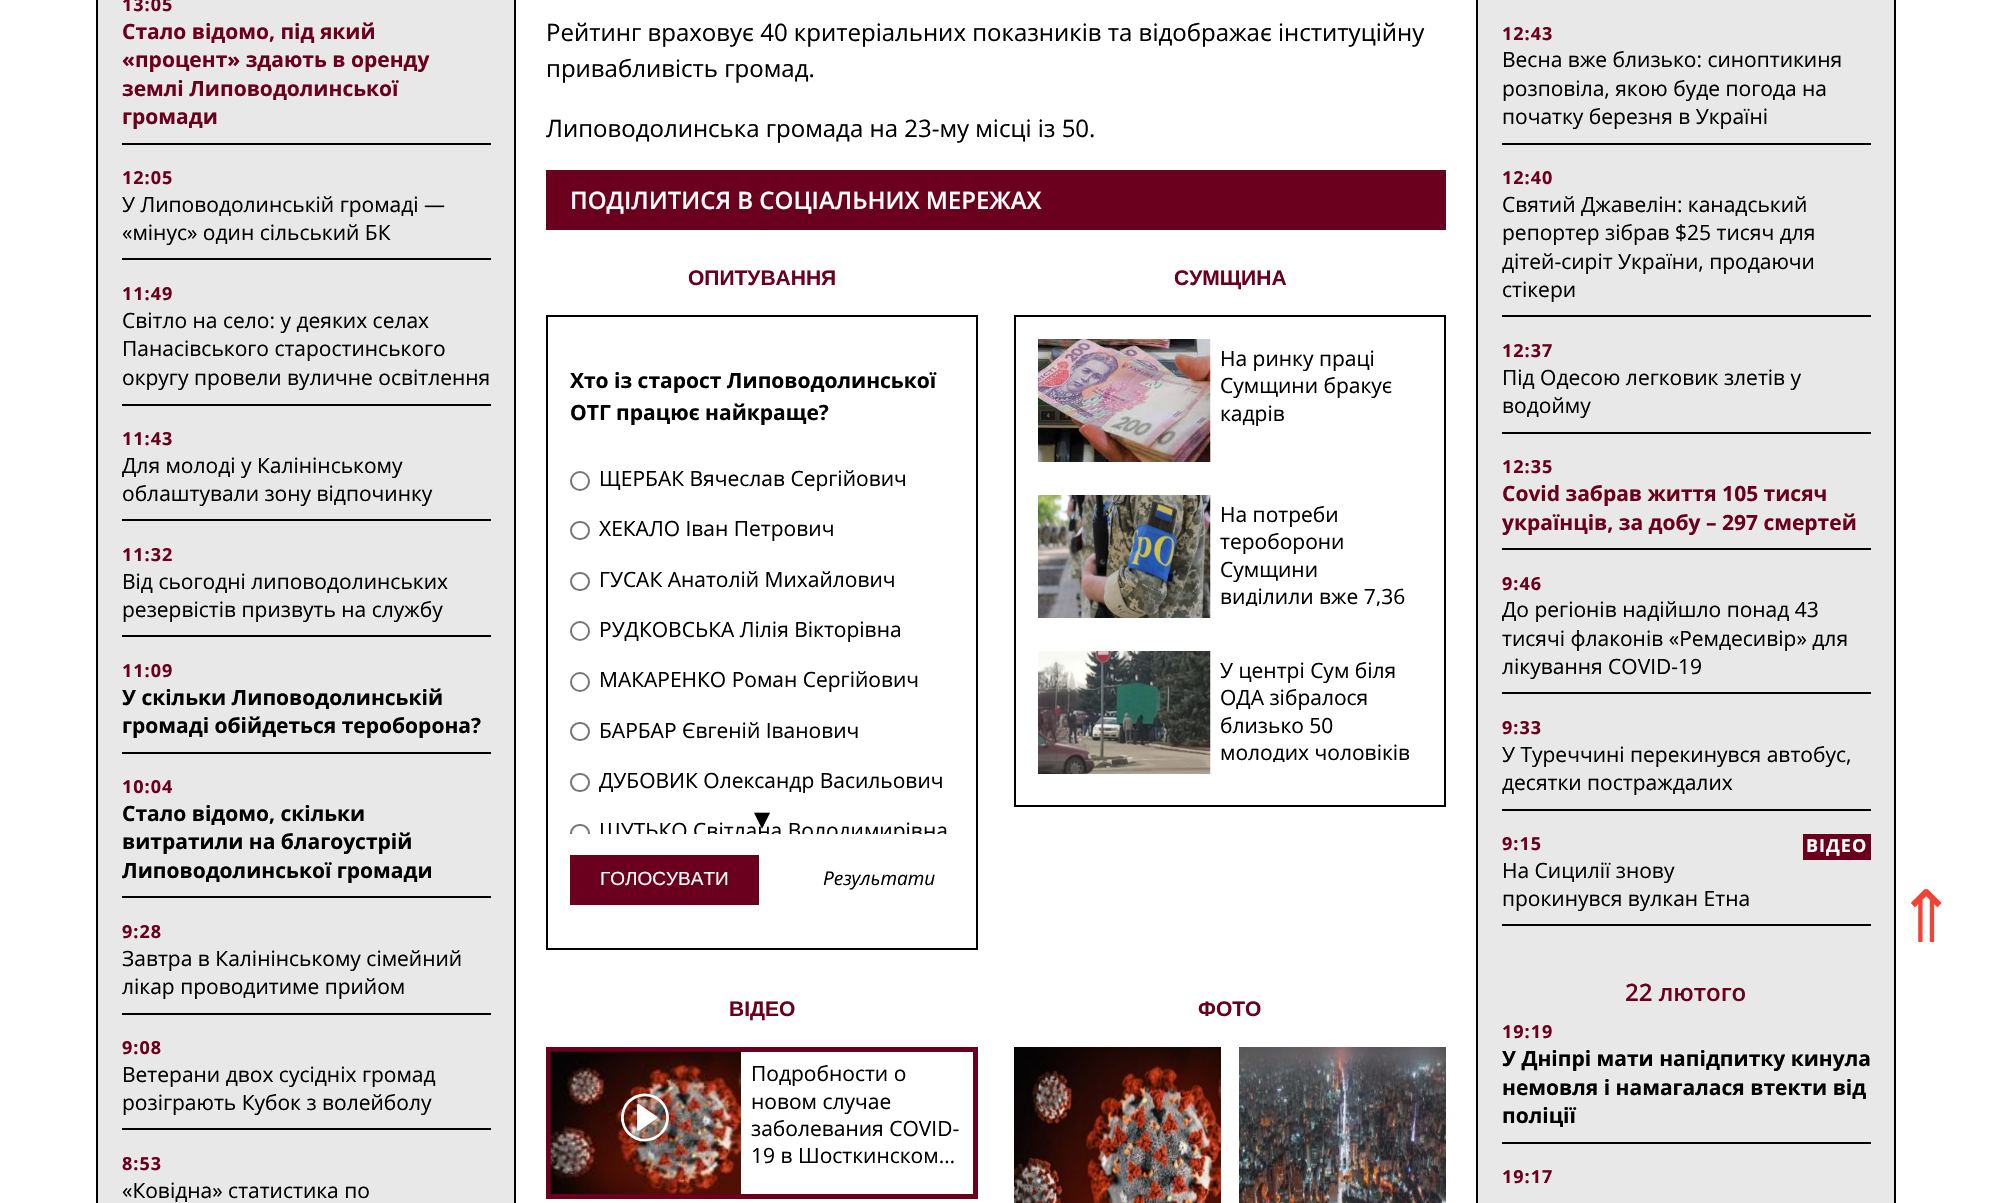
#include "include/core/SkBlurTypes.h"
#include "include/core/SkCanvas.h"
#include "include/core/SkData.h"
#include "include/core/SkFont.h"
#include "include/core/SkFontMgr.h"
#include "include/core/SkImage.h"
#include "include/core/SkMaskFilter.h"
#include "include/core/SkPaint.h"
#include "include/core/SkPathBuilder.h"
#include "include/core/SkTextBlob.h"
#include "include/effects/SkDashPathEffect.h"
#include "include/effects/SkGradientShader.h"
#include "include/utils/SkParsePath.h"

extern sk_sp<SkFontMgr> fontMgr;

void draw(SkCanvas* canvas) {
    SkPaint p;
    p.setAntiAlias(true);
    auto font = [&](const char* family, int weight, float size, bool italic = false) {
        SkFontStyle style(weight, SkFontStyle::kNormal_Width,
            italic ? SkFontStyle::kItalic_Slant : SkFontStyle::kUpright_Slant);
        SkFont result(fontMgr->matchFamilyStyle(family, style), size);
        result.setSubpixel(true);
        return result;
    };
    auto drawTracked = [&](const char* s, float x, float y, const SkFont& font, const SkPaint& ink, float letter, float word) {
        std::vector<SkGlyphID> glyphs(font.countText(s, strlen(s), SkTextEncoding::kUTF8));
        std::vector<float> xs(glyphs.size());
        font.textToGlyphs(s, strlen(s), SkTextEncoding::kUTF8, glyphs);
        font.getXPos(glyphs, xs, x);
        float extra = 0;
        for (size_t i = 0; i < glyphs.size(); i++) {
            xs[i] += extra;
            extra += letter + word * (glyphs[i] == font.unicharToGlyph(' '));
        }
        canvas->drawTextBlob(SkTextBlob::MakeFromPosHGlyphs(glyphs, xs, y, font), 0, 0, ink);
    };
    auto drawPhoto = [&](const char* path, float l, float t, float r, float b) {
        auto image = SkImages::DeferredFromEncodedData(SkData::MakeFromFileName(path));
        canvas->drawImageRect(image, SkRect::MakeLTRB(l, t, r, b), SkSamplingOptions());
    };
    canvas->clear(0xFFFFFFFF);
    p.setColor(0xFFE8E8E8);
    canvas->drawRect(SkRect::MakeLTRB(97, -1, 515, 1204), p);
    p.setStyle(SkPaint::kStroke_Style);
    p.setStrokeWidth(2);
    p.setColor(0xFF000000);
    canvas->drawRect(SkRect::MakeLTRB(97, -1, 515, 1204), p);
    p.setStyle(SkPaint::kFill_Style);
    canvas->drawRect(SkRect::MakeLTRB(122, 143, 491, 145), p);
    auto font1 = font("Open Sans", 700, 18);
    p.setColor(0xFF6B001E);
    drawTracked("13:05", 122, 11, font1, p, 1, 0);
    auto font2 = font("Open Sans", 700, 21);
    {
        const struct { const char* s; float x, y; } items[] = {
            {"Стало відомо, під який", 122, 39},
            {"«процент» здають в оренду", 122, 67},
            {"землі Липоводолинської", 122, 96},
            {"громади", 122, 124},
        };
        for (auto [s, x, y] : items) {
            canvas->drawString(s, x, y, font2, p);
        }
    }
    p.setColor(0xFF000000);
    canvas->drawRect(SkRect::MakeLTRB(122, 258, 491, 260), p);
    p.setColor(0xFF6B001E);
    drawTracked("12:05", 122, 184, font1, p, 1, 0);
    auto font3 = font("Open Sans", 400, 21);
    p.setColor(0xFF000000);
    canvas->drawString("У Липоводолинській громаді —", 122, 212, font3, p);
    canvas->drawString("«мінус» один сільський БК", 122, 240, font3, p);
    canvas->drawRect(SkRect::MakeLTRB(122, 404, 491, 406), p);
    p.setColor(0xFF6B001E);
    drawTracked("11:49", 122, 300, font1, p, 1, 0);
    p.setColor(0xFF000000);
    {
        const struct { const char* s; float x, y; } items[] = {
            {"Світло на село: у деяких селах", 122, 328},
            {"Панасівського старостинського", 122, 356},
            {"округу провели вуличне освітлення", 122, 385},
        };
        for (auto [s, x, y] : items) {
            canvas->drawString(s, x, y, font3, p);
        }
    }
    canvas->drawRect(SkRect::MakeLTRB(122, 519, 491, 521), p);
    p.setColor(0xFF6B001E);
    drawTracked("11:43", 122, 445, font1, p, 1, 0);
    p.setColor(0xFF000000);
    canvas->drawString("Для молоді у Калінінському", 122, 473, font3, p);
    canvas->drawString("облаштували зону відпочинку", 122, 501, font3, p);
    canvas->drawRect(SkRect::MakeLTRB(122, 635, 491, 637), p);
    p.setColor(0xFF6B001E);
    drawTracked("11:32", 122, 561, font1, p, 1, 0);
    p.setColor(0xFF000000);
    canvas->drawString("Від сьогодні липоводолинських", 122, 589, font3, p);
    canvas->drawString("резервістів призвуть на службу", 122, 617, font3, p);
    canvas->drawRect(SkRect::MakeLTRB(122, 752, 491, 754), p);
    p.setColor(0xFF6B001E);
    drawTracked("11:09", 122, 677, font1, p, 1, 0);
    p.setColor(0xFF000000);
    canvas->drawString("У скільки Липоводолинській", 122, 705, font2, p);
    canvas->drawString("громаді обійдеться тероборона?", 122, 733, font2, p);
    canvas->drawRect(SkRect::MakeLTRB(122, 896, 491, 898), p);
    p.setColor(0xFF6B001E);
    drawTracked("10:04", 122, 793, font1, p, 1, 0);
    p.setColor(0xFF000000);
    {
        const struct { const char* s; float x, y; } items[] = {
            {"Стало відомо, скільки", 122, 821},
            {"витратили на благоустрій", 122, 849},
            {"Липоводолинської громади", 122, 878},
        };
        for (auto [s, x, y] : items) {
            canvas->drawString(s, x, y, font2, p);
        }
    }
    canvas->drawRect(SkRect::MakeLTRB(122, 1013, 491, 1015), p);
    p.setColor(0xFF6B001E);
    drawTracked("9:28", 122, 938, font1, p, 1, 0);
    p.setColor(0xFF000000);
    canvas->drawString("Завтра в Калінінському сімейний", 122, 966, font3, p);
    canvas->drawString("лікар проводитиме прийом", 122, 994, font3, p);
    canvas->drawRect(SkRect::MakeLTRB(122, 1128, 491, 1130), p);
    p.setColor(0xFF6B001E);
    drawTracked("9:08", 122, 1054, font1, p, 1, 0);
    p.setColor(0xFF000000);
    canvas->drawString("Ветерани двох сусідніх громад", 122, 1082, font3, p);
    canvas->drawString("розіграють Кубок з волейболу", 122, 1110, font3, p);
    p.setColor(0xFF6B001E);
    drawTracked("8:53", 122, 1170, font1, p, 1, 0);
    p.setColor(0xFF000000);
    canvas->drawString("«Ковідна» статистика по", 122, 1198, font3, p);
    auto font4 = font("Open Sans", 400, 24);
    {
        const struct { const char* s; float x, y; } items[] = {
            {"Рейтинг враховує 40 критеріальних показників та відображає інституційну", 546, 41},
            {"привабливість громад.", 546, 77},
            {"Липоводолинська громада на 23-му місці із 50.", 546, 137},
        };
        for (auto [s, x, y] : items) {
            canvas->drawString(s, x, y, font4, p);
        }
    }
    p.setColor(0xFF6B001E);
    canvas->drawRect(SkRect::MakeLTRB(546, 170, 1446, 230), p);
    auto font5 = font("Open Sans", 600, 24);
    p.setColor(0xFFFFFFFF);
    canvas->drawString("ПОДІЛИТИСЯ В СОЦІАЛЬНИХ МЕРЕЖАХ", 570, 209, font5, p);
    auto font6 = font("Liberation Sans", 700, 21);
    p.setColor(0xFF6B001E);
    canvas->drawString("ОПИТУВАННЯ", 688, 285, font6, p);
    p.setStyle(SkPaint::kStroke_Style);
    p.setColor(0xFF000000);
    canvas->drawRect(SkRect::MakeLTRB(547, 316, 977, 949), p);
    p.setStyle(SkPaint::kFill_Style);
    canvas->drawString("Хто із старост Липоводолинської", 570, 388, font2, p);
    canvas->drawString("ОТГ працює найкраще?", 570, 420, font2, p);
    p.setStyle(SkPaint::kStroke_Style);
    p.setColor(0xFF767676);
    canvas->drawCircle(580, 481, 9, p);
    p.setStyle(SkPaint::kFill_Style);
    p.setColor(0xFF000000);
    canvas->drawString("ЩЕРБАК Вячеслав Сергійович", 599, 486, font3, p);
    p.setStyle(SkPaint::kStroke_Style);
    p.setColor(0xFF767676);
    canvas->drawRoundRect(SkRect::MakeLTRB(571, 522, 589, 539), 8.5f, 8.5f, p);
    p.setStyle(SkPaint::kFill_Style);
    p.setColor(0xFF000000);
    canvas->drawString("ХЕКАЛО Іван Петрович", 599, 536, font3, p);
    p.setStyle(SkPaint::kStroke_Style);
    p.setColor(0xFF767676);
    canvas->drawRoundRect(SkRect::MakeLTRB(571, 573, 589, 590), 8.5f, 8.5f, p);
    p.setStyle(SkPaint::kFill_Style);
    p.setColor(0xFF000000);
    canvas->drawString("ГУСАК Анатолій Михайлович", 599, 587, font3, p);
    p.setStyle(SkPaint::kStroke_Style);
    p.setColor(0xFF767676);
    canvas->drawCircle(580, 631, 9, p);
    p.setStyle(SkPaint::kFill_Style);
    p.setColor(0xFF000000);
    canvas->drawString("РУДКОВСЬКА Лілія Вікторівна", 599, 637, font3, p);
    p.setStyle(SkPaint::kStroke_Style);
    p.setColor(0xFF767676);
    canvas->drawCircle(580, 682, 9, p);
    p.setStyle(SkPaint::kFill_Style);
    p.setColor(0xFF000000);
    canvas->drawString("МАКАРЕНКО Роман Сергійович", 599, 687, font3, p);
    p.setStyle(SkPaint::kStroke_Style);
    p.setColor(0xFF767676);
    canvas->drawRoundRect(SkRect::MakeLTRB(571, 723, 589, 740), 8.5f, 8.5f, p);
    p.setStyle(SkPaint::kFill_Style);
    p.setColor(0xFF000000);
    canvas->drawString("БАРБАР Євгеній Іванович", 599, 738, font3, p);
    p.setStyle(SkPaint::kStroke_Style);
    p.setColor(0xFF767676);
    canvas->drawRoundRect(SkRect::MakeLTRB(571, 774, 589, 791), 8.5f, 8.5f, p);
    p.setStyle(SkPaint::kFill_Style);
    p.setColor(0xFF000000);
    canvas->drawString("ДУБОВИК Олександр Васильович", 599, 788, font3, p);
    canvas->save();
    canvas->clipRect(SkRect::MakeLTRB(570, 459, 954, 834));
    canvas->drawString("ШУТЬКО Світлана Володимирівна", 599, 838, font3, p);
    canvas->restore();
    auto font7 = font("DejaVu Sans", 400, 32);
    canvas->drawString("▾", 754, 829, font7, p);
    canvas->save();
    canvas->clipRect(SkRect::MakeLTRB(570, 459, 954, 834));
    p.setStyle(SkPaint::kStroke_Style);
    p.setColor(0xFF767676);
    canvas->drawRoundRect(SkRect::MakeLTRB(571, 825, 589, 842), 8.5f, 8.5f, p);
    canvas->restore();
    p.setStyle(SkPaint::kFill_Style);
    p.setColor(0xFF6B001E);
    canvas->drawRect(SkRect::MakeLTRB(570, 855, 759, 905), p);
    auto font8 = font("Liberation Sans", 400, 19);
    p.setColor(0xFFFFFFFF);
    canvas->drawString("ГОЛОСУВАТИ", 600, 885, font8, p);
    auto font9 = font("Open Sans", 400, 19, true);
    p.setColor(0xFF000000);
    canvas->drawString("Результати", 823, 885, font9, p);
    p.setColor(0xFF6B001E);
    canvas->drawString("СУМЩИНА", 1174, 285, font6, p);
    p.setStyle(SkPaint::kStroke_Style);
    p.setColor(0xFF000000);
    canvas->drawRect(SkRect::MakeLTRB(1015, 316, 1445, 806), p);
    drawPhoto("media/1.png", 1038, 339, 1211, 462);
    p.setStyle(SkPaint::kFill_Style);
    {
        const struct { const char* s; float x, y; } items[] = {
            {"На ринку праці", 1220, 366},
            {"Сумщини бракує", 1220, 393},
            {"кадрів", 1220, 421},
        };
        for (auto [s, x, y] : items) {
            canvas->drawString(s, x, y, font3, p);
        }
    }
    drawPhoto("media/2.png", 1038, 495, 1211, 618);
    {
        const struct { const char* s; float x, y; } items[] = {
            {"На потреби", 1220, 522},
            {"тероборони", 1220, 549},
            {"Сумщини", 1220, 577},
        };
        for (auto [s, x, y] : items) {
            canvas->drawString(s, x, y, font3, p);
        }
    }
    canvas->save();
    canvas->clipRect(SkRect::MakeLTRB(1221, 501, 1413, 606));
    canvas->drawString("виділили вже 7,36", 1220, 604, font3, p);
    canvas->restore();
    drawPhoto("media/3.png", 1038, 651, 1211, 774);
    {
        const struct { const char* s; float x, y; } items[] = {
            {"У центрі Сум біля", 1220, 678},
            {"ОДА зібралося", 1220, 705},
            {"близько 50", 1220, 733},
        };
        for (auto [s, x, y] : items) {
            canvas->drawString(s, x, y, font3, p);
        }
    }
    canvas->save();
    canvas->clipRect(SkRect::MakeLTRB(1221, 657, 1413, 762));
    canvas->drawString("молодих чоловіків", 1220, 760, font3, p);
    canvas->restore();
    p.setColor(0xFF6B001E);
    canvas->drawString("ВІДЕО", 729, 1016, font6, p);
    p.setStyle(SkPaint::kStroke_Style);
    p.setStrokeWidth(5);
    canvas->drawRect(SkRect::MakeLTRB(548.5f, 1049.5f, 975.5f, 1196.5f), p);
    drawPhoto("media/4.png", 550, 1051, 741, 1194);
    drawPhoto("media/5.png", 621, 1093, 669, 1142);
    p.setStyle(SkPaint::kFill_Style);
    p.setColor(0xFF000000);
    {
        const struct { const char* s; float x, y; } items[] = {
            {"Подробности о", 751, 1081},
            {"новом случае", 751, 1109},
            {"заболевания COVID-", 751, 1136},
            {"19 в Шосткинском…", 751, 1163},
        };
        for (auto [s, x, y] : items) {
            canvas->drawString(s, x, y, font3, p);
        }
    }
    p.setColor(0xFF6B001E);
    canvas->drawString("ФОТО", 1198, 1016, font6, p);
    drawPhoto("media/6.png", 1014, 1047, 1221, 1203);
    drawPhoto("media/7.png", 1239, 1047, 1446, 1203);
    p.setColor(0xFFE8E8E8);
    canvas->drawRect(SkRect::MakeLTRB(1477, -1, 1895, 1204), p);
    p.setStyle(SkPaint::kStroke_Style);
    p.setStrokeWidth(2);
    p.setColor(0xFF000000);
    canvas->drawRect(SkRect::MakeLTRB(1477, -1, 1895, 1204), p);
    p.setStyle(SkPaint::kFill_Style);
    canvas->drawRect(SkRect::MakeLTRB(1502, 143, 1871, 145), p);
    p.setColor(0xFF6B001E);
    drawTracked("12:43", 1502, 40, font1, p, 1, 0);
    p.setColor(0xFF000000);
    {
        const struct { const char* s; float x, y; } items[] = {
            {"Весна вже близько: синоптикиня", 1502, 67},
            {"розповіла, якою буде погода на", 1502, 96},
            {"початку березня в Україні", 1502, 124},
        };
        for (auto [s, x, y] : items) {
            canvas->drawString(s, x, y, font3, p);
        }
    }
    canvas->drawRect(SkRect::MakeLTRB(1502, 315, 1871, 317), p);
    p.setColor(0xFF6B001E);
    drawTracked("12:40", 1502, 184, font1, p, 1, 0);
    p.setColor(0xFF000000);
    {
        const struct { const char* s; float x, y; } items[] = {
            {"Святий Джавелін: канадський", 1502, 212},
            {"репортер зібрав $25 тисяч для", 1502, 240},
            {"дітей-сиріт України, продаючи", 1502, 269},
            {"стікери", 1502, 297},
        };
        for (auto [s, x, y] : items) {
            canvas->drawString(s, x, y, font3, p);
        }
    }
    canvas->drawRect(SkRect::MakeLTRB(1502, 432, 1871, 434), p);
    p.setColor(0xFF6B001E);
    drawTracked("12:37", 1502, 357, font1, p, 1, 0);
    p.setColor(0xFF000000);
    canvas->drawString("Під Одесою легковик злетів у", 1502, 385, font3, p);
    canvas->drawString("водойму", 1502, 413, font3, p);
    canvas->drawRect(SkRect::MakeLTRB(1502, 548, 1871, 550), p);
    p.setColor(0xFF6B001E);
    drawTracked("12:35", 1502, 473, font1, p, 1, 0);
    canvas->drawString("Covid забрав життя 105 тисяч", 1502, 501, font2, p);
    canvas->drawString("українців, за добу – 297 смертей", 1502, 530, font2, p);
    p.setColor(0xFF000000);
    canvas->drawRect(SkRect::MakeLTRB(1502, 692, 1871, 694), p);
    p.setColor(0xFF6B001E);
    drawTracked("9:46", 1502, 590, font1, p, 1, 0);
    p.setColor(0xFF000000);
    {
        const struct { const char* s; float x, y; } items[] = {
            {"До регіонів надійшло понад 43", 1502, 617},
            {"тисячі флаконів «Ремдесивір» для", 1502, 646},
            {"лікування COVID-19", 1502, 674},
        };
        for (auto [s, x, y] : items) {
            canvas->drawString(s, x, y, font3, p);
        }
    }
    canvas->drawRect(SkRect::MakeLTRB(1502, 809, 1871, 811), p);
    p.setColor(0xFF6B001E);
    drawTracked("9:33", 1502, 734, font1, p, 1, 0);
    p.setColor(0xFF000000);
    canvas->drawString("У Туреччині перекинувся автобус,", 1502, 762, font3, p);
    canvas->drawString("десятки постраждалих", 1502, 790, font3, p);
    canvas->drawRect(SkRect::MakeLTRB(1502, 924, 1871, 926), p);
    p.setColor(0xFF6B001E);
    drawTracked("9:15", 1502, 850, font1, p, 1, 0);
    canvas->drawRect(SkRect::MakeLTRB(1803, 834, 1871, 860), p);
    p.setColor(0xFFFFFFFF);
    drawTracked("ВІДЕО", 1806, 852, font1, p, 1, 0);
    p.setColor(0xFF000000);
    canvas->drawString("На Сицилії знову", 1502, 878, font3, p);
    canvas->drawString("прокинувся вулкан Етна", 1502, 906, font3, p);
    p.setColor(0xFF6B001E);
    canvas->drawString("22 лютого", 1625, 1001, font5, p);
    p.setColor(0xFF000000);
    canvas->drawRect(SkRect::MakeLTRB(1502, 1142, 1871, 1144), p);
    p.setColor(0xFF6B001E);
    drawTracked("19:19", 1502, 1038, font1, p, 1, 0);
    p.setColor(0xFF000000);
    {
        const struct { const char* s; float x, y; } items[] = {
            {"У Дніпрі мати напідпитку кинула", 1502, 1066},
            {"немовля і намагалася втекти від", 1502, 1095},
            {"поліції", 1502, 1123},
        };
        for (auto [s, x, y] : items) {
            canvas->drawString(s, x, y, font2, p);
        }
    }
    p.setColor(0xFF6B001E);
    drawTracked("19:17", 1502, 1183, font1, p, 1, 0);
    auto font10 = font("DejaVu Sans", 400, 72);
    p.setColor(0xFFF44336);
    canvas->drawString("⇑", 1896, 942, font10, p);
}
